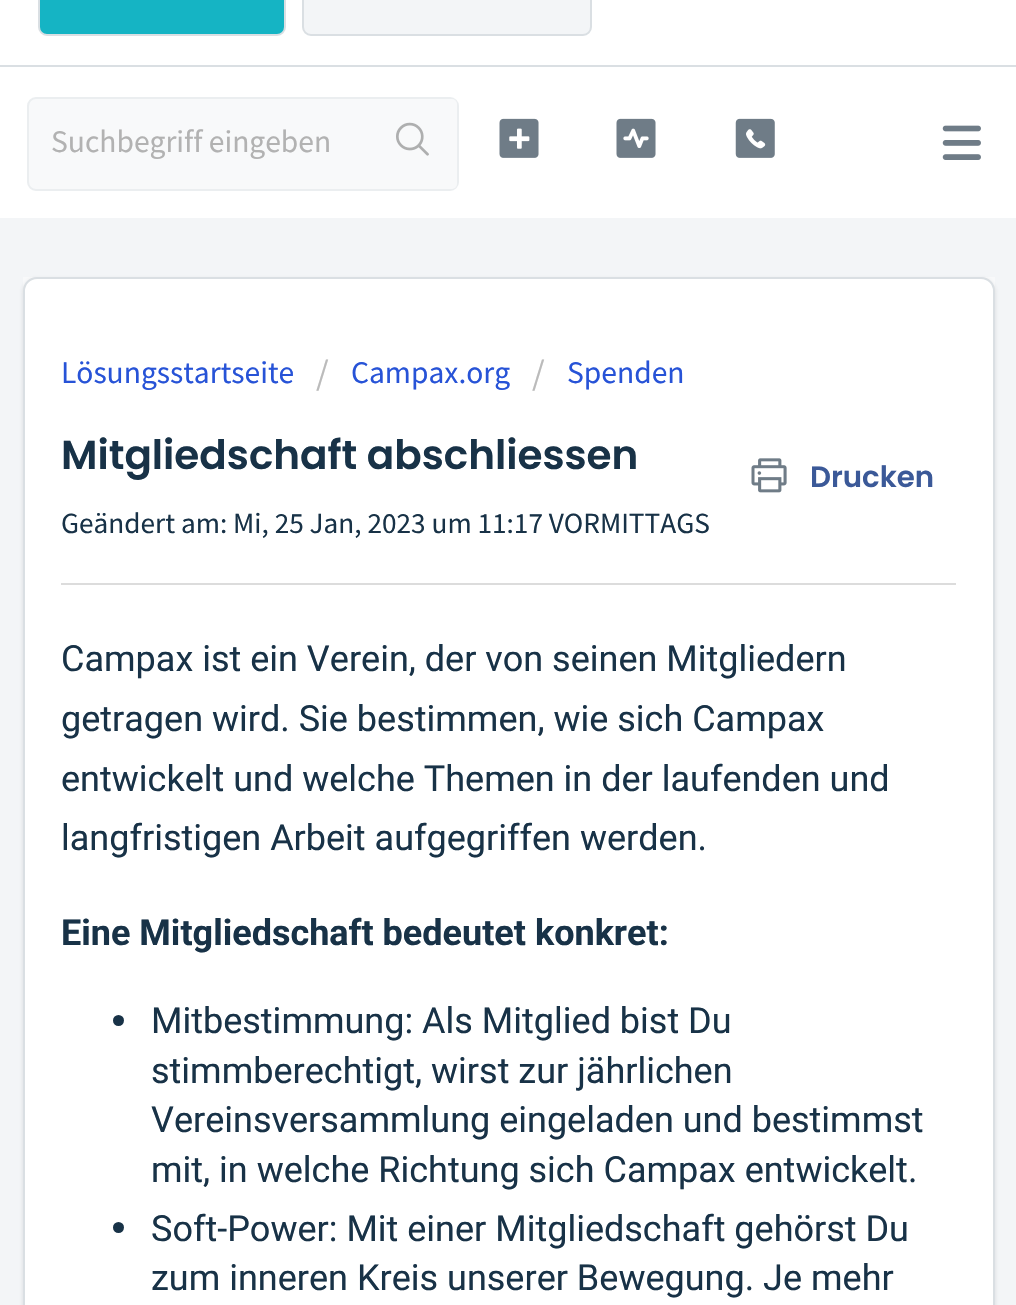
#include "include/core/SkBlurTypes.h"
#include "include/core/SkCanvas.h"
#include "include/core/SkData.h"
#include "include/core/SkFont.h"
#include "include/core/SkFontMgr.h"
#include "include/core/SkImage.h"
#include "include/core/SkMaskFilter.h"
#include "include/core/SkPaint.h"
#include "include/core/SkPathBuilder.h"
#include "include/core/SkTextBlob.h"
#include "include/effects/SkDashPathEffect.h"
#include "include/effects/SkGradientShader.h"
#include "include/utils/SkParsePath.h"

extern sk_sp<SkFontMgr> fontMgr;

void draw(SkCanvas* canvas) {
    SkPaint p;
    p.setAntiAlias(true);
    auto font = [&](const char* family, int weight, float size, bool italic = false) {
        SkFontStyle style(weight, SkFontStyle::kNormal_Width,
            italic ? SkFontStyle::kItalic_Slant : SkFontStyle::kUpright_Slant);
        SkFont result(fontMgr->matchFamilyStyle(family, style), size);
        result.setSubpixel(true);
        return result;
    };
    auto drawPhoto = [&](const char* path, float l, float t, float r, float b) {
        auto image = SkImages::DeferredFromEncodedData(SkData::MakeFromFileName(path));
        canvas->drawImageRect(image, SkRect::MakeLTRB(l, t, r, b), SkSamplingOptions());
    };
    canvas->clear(0xFFF3F5F7);
    p.setColor(0xFFFFFFFF);
    canvas->drawRect(SkRect::MakeLTRB(0, 0, 1016, 218), p);
    p.setColor(0xFFDADFE3);
    canvas->drawRect(SkRect::MakeLTRB(0, 65, 1016, 67), p);
    p.setColor(0xFF15B4C4);
    canvas->drawRoundRect(SkRect::MakeLTRB(39, -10, 285, 35), 8, 8, p);
    p.setStyle(SkPaint::kStroke_Style);
    p.setStrokeWidth(2);
    p.setColor(0xFFDADFE3);
    canvas->drawRoundRect(SkRect::MakeLTRB(39, -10, 285, 35), 8, 8, p);
    p.setStyle(SkPaint::kFill_Style);
    p.setColor(0xFFF3F5F7);
    canvas->drawRoundRect(SkRect::MakeLTRB(303, -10, 591, 35), 8, 8, p);
    p.setStyle(SkPaint::kStroke_Style);
    p.setColor(0xFFDADFE3);
    canvas->drawRoundRect(SkRect::MakeLTRB(303, -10, 591, 35), 8, 8, p);
    p.setStyle(SkPaint::kFill_Style);
    p.setColor(0xFFF8F9FA);
    canvas->drawRoundRect(SkRect::MakeLTRB(28, 98, 458, 190), 8, 8, p);
    p.setStyle(SkPaint::kStroke_Style);
    p.setColor(0xFFEBEEF0);
    canvas->drawRoundRect(SkRect::MakeLTRB(28, 98, 458, 190), 8, 8, p);
    auto font1 = font("Source Sans Pro", 400, 31.5f);
    p.setStyle(SkPaint::kFill_Style);
    p.setColor(0xFFB2B2B2);
    canvas->drawString("Suchbegriff eingeben", 51, 152, font1, p);
    p.setColor(0xFFF8F9FA);
    canvas->drawRoundRect(SkRect::MakeLTRB(371, 99, 457, 189), 5, 5, p);
    drawPhoto("media/1.png", 396, 122, 429, 156);
    drawPhoto("media/2.png", 499, 118, 539, 158);
    drawPhoto("media/3.png", 616, 118, 656, 158);
    drawPhoto("media/4.png", 735, 118, 775, 158);
    drawPhoto("media/5.png", 942, 125, 981, 160);
    canvas->drawRect(SkRect::MakeLTRB(23, 277, 995, 291), p);
    p.setColor(0x263F3F44);
    p.setMaskFilter(SkMaskFilter::MakeBlur(kNormal_SkBlurStyle, 2));
    canvas->drawRoundRect(SkRect::MakeLTRB(23, 279, 995, 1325), 14, 14, p);
    p.setMaskFilter(nullptr);
    p.setColor(0xFFFFFFFF);
    canvas->drawRoundRect(SkRect::MakeLTRB(24, 278, 994, 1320), 13, 13, p);
    p.setStyle(SkPaint::kStroke_Style);
    p.setColor(0xFFDADFE3);
    canvas->drawRoundRect(SkRect::MakeLTRB(24, 278, 994, 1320), 13, 13, p);
    p.setStyle(SkPaint::kFill_Style);
    p.setColor(0xFF2753D7);
    canvas->drawString("Lösungsstartseite", 61, 383, font1, p);
    auto font2 = font("Source Sans Pro", 400, 36);
    p.setColor(0xFFBBBBBB);
    canvas->drawString("/", 316, 385, font2, p);
    p.setColor(0xFF2753D7);
    canvas->drawString("Campax.org", 351, 383, font1, p);
    p.setColor(0xFFBBBBBB);
    canvas->drawString("/", 532, 385, font2, p);
    p.setColor(0xFF2753D7);
    canvas->drawString("Spenden", 567, 383, font1, p);
    auto font3 = font("Poppins", 600, 40.5f);
    p.setColor(0xFF183247);
    canvas->drawString("Mitgliedschaft abschliessen", 61, 469, font3, p);
    drawPhoto("media/6.png", 751, 458, 787, 493);
    auto font4 = font("Poppins", 600, 29.25f);
    p.setColor(0xFF3B5998);
    canvas->drawString("Drucken", 810, 487, font4, p);
    auto font5 = font("Source Sans Pro", 400, 29.25f);
    p.setColor(0xFF183247);
    canvas->drawString("Geändert am: Mi, 25 Jan, 2023 um 11:17 VORMITTAGS", 61, 533, font5, p);
    p.setColor(0xFFDCDCDC);
    canvas->drawRect(SkRect::MakeLTRB(61, 583, 956, 585), p);
    auto font6 = font("Roboto", 400, 36);
    p.setColor(0xFF183247);
    {
        const struct { const char* s; float x, y; } items[] = {
            {"Campax ist ein Verein, der von seinen Mitgliedern", 61, 671},
            {"getragen wird. Sie bestimmen, wie sich Campax", 61, 731},
            {"entwickelt und welche Themen in der laufenden und", 61, 791},
            {"langfristigen Arbeit aufgegriffen werden.", 61, 850},
        };
        for (auto [s, x, y] : items) {
            canvas->drawString(s, x, y, font6, p);
        }
    }
    auto font7 = font("Roboto", 700, 36);
    canvas->drawString("Eine Mitgliedschaft bedeutet konkret:", 61, 945, font7, p);
    canvas->drawCircle(118.5f, 1020.5f, 5.5f, p);
    {
        const struct { const char* s; float x, y; } items[] = {
            {"Mitbestimmung: Als Mitglied bist Du", 151, 1033},
            {"stimmberechtigt, wirst zur jährlichen", 151, 1083},
            {"Vereinsversammlung eingeladen und bestimmst", 151, 1132},
            {"mit, in welche Richtung sich Campax entwickelt.", 151, 1182},
        };
        for (auto [s, x, y] : items) {
            canvas->drawString(s, x, y, font6, p);
        }
    }
    canvas->drawCircle(118.5f, 1227.5f, 5.5f, p);
    canvas->drawString("Soft-Power: Mit einer Mitgliedschaft gehörst Du", 151, 1241, font6, p);
    canvas->drawString("zum inneren Kreis unserer Bewegung. Je mehr", 151, 1290, font6, p);
}
